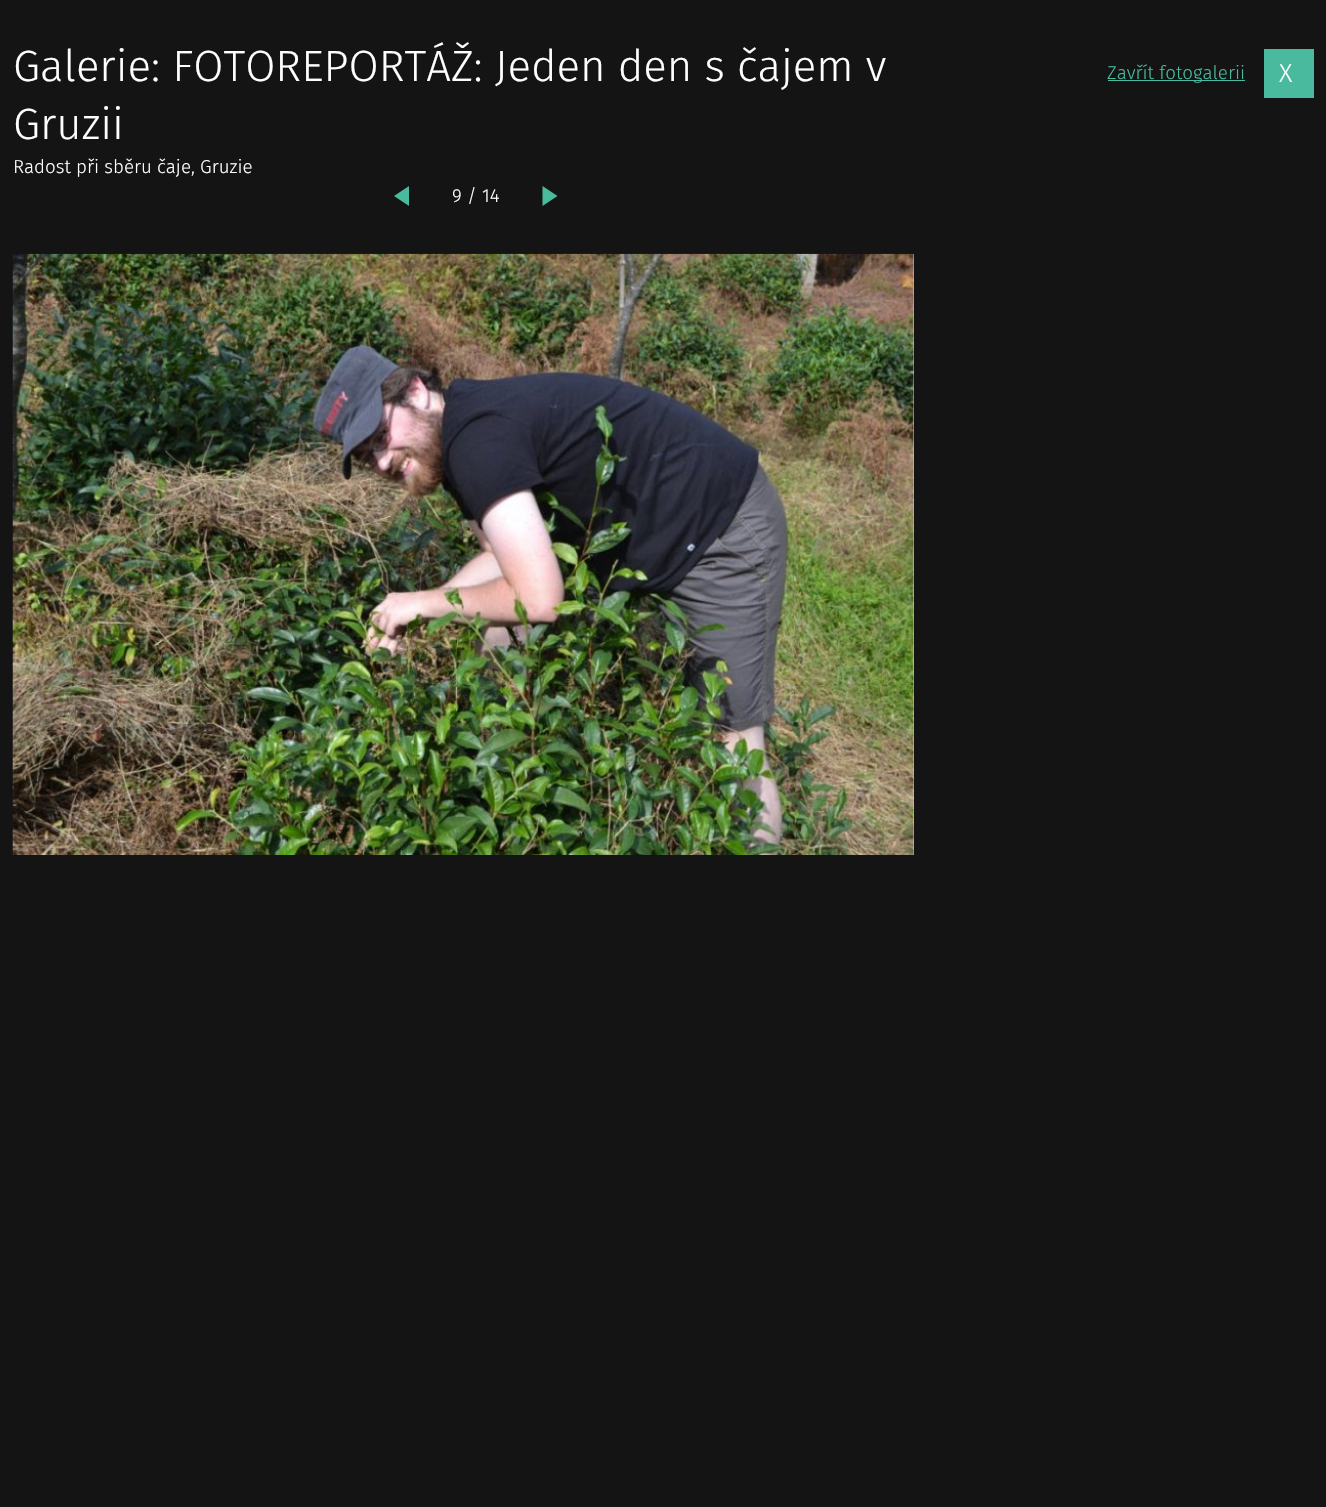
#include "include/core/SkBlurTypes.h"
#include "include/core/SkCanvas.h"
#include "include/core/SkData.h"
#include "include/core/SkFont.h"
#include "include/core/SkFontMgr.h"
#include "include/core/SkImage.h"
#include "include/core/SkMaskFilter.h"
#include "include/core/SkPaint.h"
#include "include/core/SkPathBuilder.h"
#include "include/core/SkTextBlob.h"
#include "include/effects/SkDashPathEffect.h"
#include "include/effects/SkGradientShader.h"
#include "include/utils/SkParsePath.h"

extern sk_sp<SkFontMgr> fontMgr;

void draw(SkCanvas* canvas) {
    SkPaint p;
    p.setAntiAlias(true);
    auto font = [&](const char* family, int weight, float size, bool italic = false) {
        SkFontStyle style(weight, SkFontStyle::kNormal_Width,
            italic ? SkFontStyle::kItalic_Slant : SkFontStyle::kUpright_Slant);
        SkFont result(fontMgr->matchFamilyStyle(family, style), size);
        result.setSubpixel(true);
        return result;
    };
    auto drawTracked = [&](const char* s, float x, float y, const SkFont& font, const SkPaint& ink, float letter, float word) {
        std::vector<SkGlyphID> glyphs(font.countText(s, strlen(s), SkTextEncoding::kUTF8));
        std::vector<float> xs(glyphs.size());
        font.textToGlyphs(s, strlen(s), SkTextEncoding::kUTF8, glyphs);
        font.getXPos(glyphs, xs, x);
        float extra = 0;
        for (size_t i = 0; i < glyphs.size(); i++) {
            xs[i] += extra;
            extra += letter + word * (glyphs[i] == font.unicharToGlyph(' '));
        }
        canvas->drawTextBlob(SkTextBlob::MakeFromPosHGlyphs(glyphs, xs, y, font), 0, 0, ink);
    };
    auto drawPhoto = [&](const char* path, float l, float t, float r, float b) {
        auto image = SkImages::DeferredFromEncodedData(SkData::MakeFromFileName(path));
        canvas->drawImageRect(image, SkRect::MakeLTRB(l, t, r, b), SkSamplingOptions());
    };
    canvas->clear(0xFF141414);
    auto font1 = font("Fira Sans", 300, 43.75f);
    p.setColor(0xFFFFFFFF);
    canvas->drawString("Galerie: FOTOREPORTÁŽ: Jeden den s čajem v", 13, 81, font1, p);
    canvas->drawString("Gruzii", 13, 139, font1, p);
    auto font2 = font("Fira Sans", 300, 18.75f);
    canvas->drawString("Radost při sběru čaje, Gruzie", 13, 173, font2, p);
    p.setColor(0xFF49BA9D);
    canvas->drawPath(SkPathBuilder().moveTo(409, 186).lineTo(409, 206).lineTo(394, 196).close().detach(), p);
    p.setColor(0xFFFFFFFF);
    canvas->drawString("9 / 14", 452, 202, font2, p);
    p.setColor(0xFF49BA9D);
    canvas->drawPath(SkPathBuilder().moveTo(542.5f, 206).lineTo(542.5f, 186).lineTo(557.5f, 196).close().detach(), p);
    canvas->drawRect(SkRect::MakeLTRB(1108, 80, 1245, 81), p);
    canvas->drawString("Zavřít fotogalerii", 1107, 79, font2, p);
    canvas->drawRect(SkRect::MakeLTRB(1264, 49, 1314, 98), p);
    auto font3 = font("Fira Sans", 300, 26);
    p.setColor(0xFFFFFFFF);
    drawTracked("X", 1279, 82, font3, p, 6, 0);
    p.setColor(0xFFDADADA);
    canvas->drawRect(SkRect::MakeLTRB(913, 254, 914, 855), p);
    drawPhoto("media/1.png", 12, 253, 914, 855);
}
